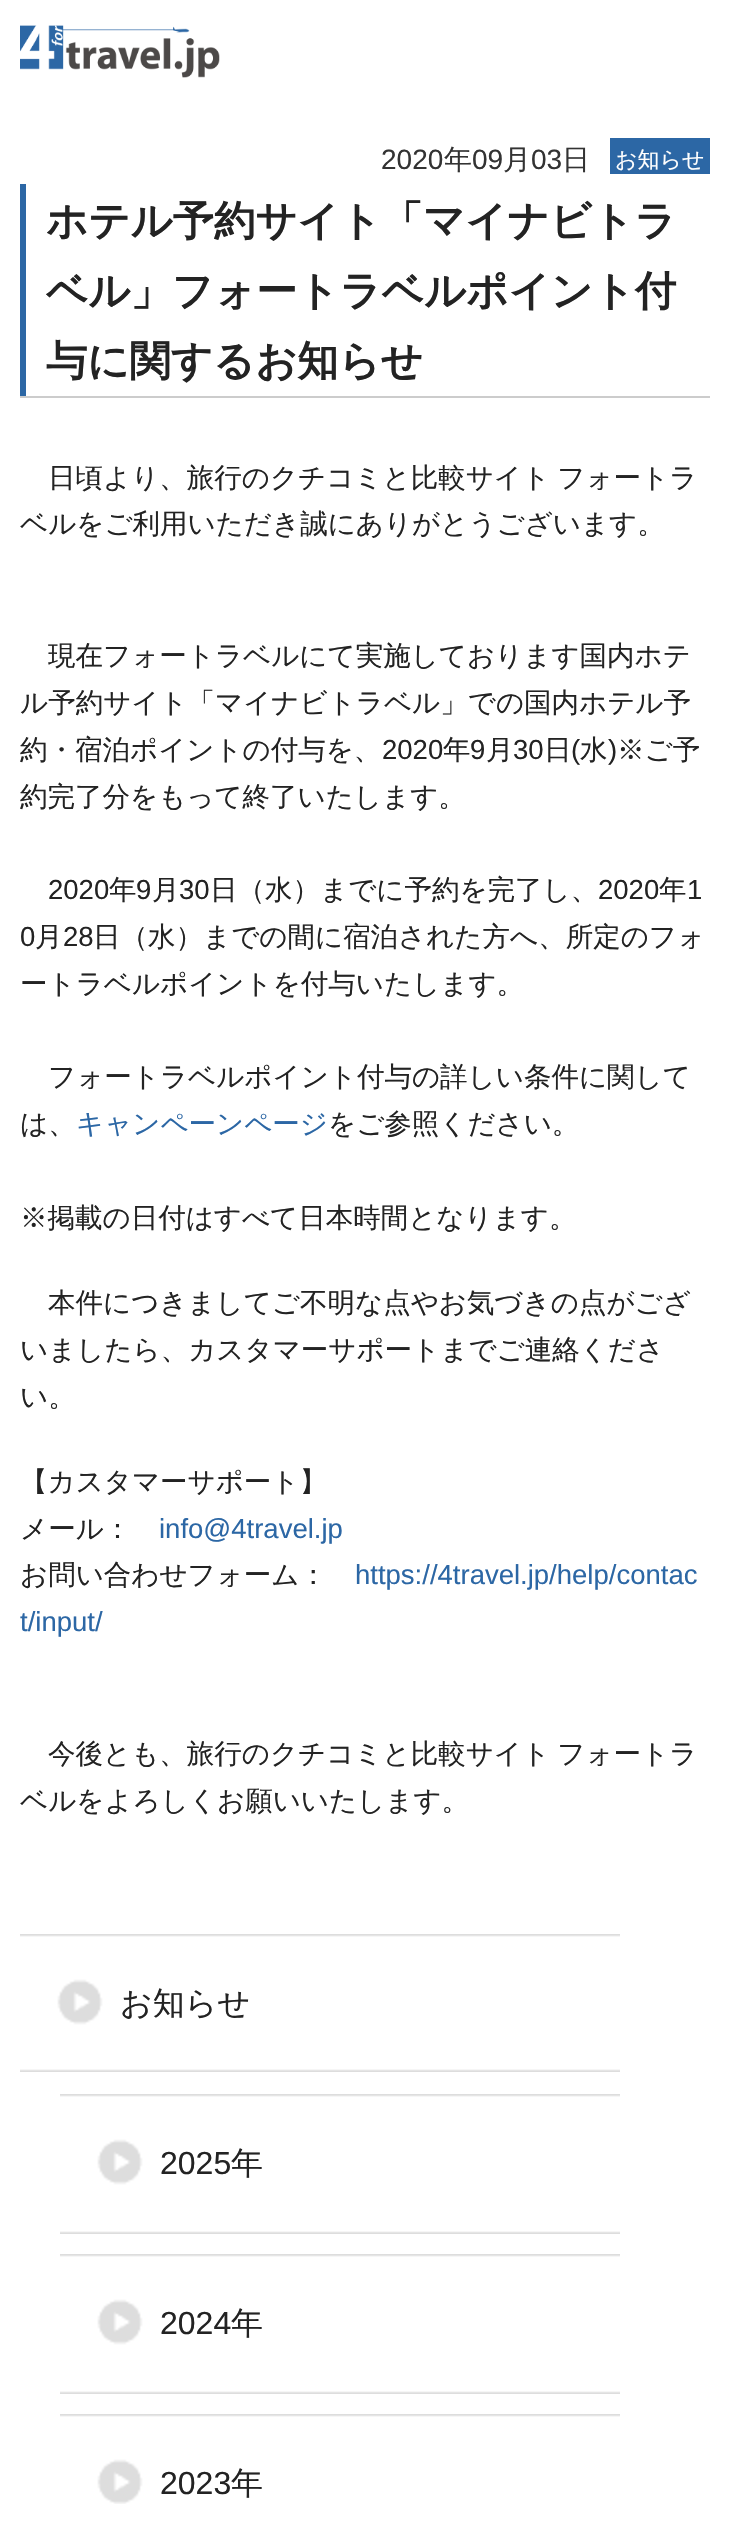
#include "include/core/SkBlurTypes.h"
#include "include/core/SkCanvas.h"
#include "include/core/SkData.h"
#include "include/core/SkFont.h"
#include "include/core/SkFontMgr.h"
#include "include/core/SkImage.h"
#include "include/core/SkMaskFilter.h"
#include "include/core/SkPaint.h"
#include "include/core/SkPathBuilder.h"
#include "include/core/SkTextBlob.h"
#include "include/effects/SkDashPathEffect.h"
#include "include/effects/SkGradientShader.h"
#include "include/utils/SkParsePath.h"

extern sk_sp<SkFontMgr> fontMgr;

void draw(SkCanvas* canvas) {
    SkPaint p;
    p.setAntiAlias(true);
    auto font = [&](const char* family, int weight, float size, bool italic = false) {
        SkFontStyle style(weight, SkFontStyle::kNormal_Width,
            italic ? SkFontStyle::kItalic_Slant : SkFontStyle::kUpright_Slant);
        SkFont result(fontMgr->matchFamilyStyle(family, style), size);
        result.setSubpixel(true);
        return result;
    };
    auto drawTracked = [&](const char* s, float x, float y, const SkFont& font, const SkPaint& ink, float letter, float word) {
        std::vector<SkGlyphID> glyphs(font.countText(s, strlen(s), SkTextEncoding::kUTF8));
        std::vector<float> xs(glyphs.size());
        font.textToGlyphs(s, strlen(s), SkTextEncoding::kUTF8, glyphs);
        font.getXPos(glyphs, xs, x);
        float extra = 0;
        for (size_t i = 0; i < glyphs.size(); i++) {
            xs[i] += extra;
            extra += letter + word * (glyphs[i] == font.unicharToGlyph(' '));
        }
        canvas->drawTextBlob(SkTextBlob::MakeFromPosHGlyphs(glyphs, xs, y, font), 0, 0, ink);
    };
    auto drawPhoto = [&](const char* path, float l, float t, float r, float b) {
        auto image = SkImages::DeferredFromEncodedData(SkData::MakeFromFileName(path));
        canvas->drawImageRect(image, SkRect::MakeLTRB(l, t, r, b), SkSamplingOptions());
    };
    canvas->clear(0xFFFFFFFF);
    drawPhoto("media/1.png", 20, 25, 220, 78);
    auto font1 = font("Liberation Sans", 400, 28);
    p.setColor(0xFF333333);
    canvas->drawString("2020", 381, 169, font1, p);
    auto font2 = font("WenQuanYi Zen Hei", 500, 28);
    canvas->drawString("年", 444, 169, font2, p);
    canvas->drawString("09", 472, 169, font1, p);
    canvas->drawString("月", 503, 169, font2, p);
    canvas->drawString("03", 531, 169, font1, p);
    canvas->drawString("日", 562, 169, font2, p);
    p.setColor(0xFF2C67A5);
    canvas->drawRect(SkRect::MakeLTRB(610, 138, 710, 174), p);
    auto font3 = font("WenQuanYi Zen Hei", 500, 22);
    p.setColor(0xFFFFFFFF);
    canvas->drawString("お知らせ", 615, 167, font3, p);
    p.setColor(0xFFCCCCCC);
    canvas->drawRect(SkRect::MakeLTRB(20, 396, 710, 398), p);
    p.setColor(0xFF2C67A5);
    canvas->drawRect(SkRect::MakeLTRB(20, 184, 26, 396), p);
    auto font4 = font("WenQuanYi Zen Hei", 700, 41.25f);
    p.setColor(0xFF232323);
    {
        const struct { const char* s; float x, y; } items[] = {
            {"ホテル予約サイト「マイナビトラ", 46, 235},
            {"ベル」フォートラベルポイント付", 46, 305},
            {"与に関するお知らせ", 46, 375},
        };
        for (auto [s, x, y] : items) {
            canvas->drawString(s, x, y, font4, p);
        }
    }
    auto font5 = font("WenQuanYi Zen Hei", 500, 27.5f);
    drawTracked("日頃より、旅行のクチコミと比較サイト フォートラ", 48, 487, font5, p, 0, -1);
    {
        const struct { const char* s; float x, y; } items[] = {
            {"ベルをご利用いただき誠にありがとうございます。", 20, 533},
            {"現在フォートラベルにて実施しております国内ホテ", 48, 665},
            {"ル予約サイト「マイナビトラベル」での国内ホテル予", 20, 712},
            {"約・宿泊ポイントの付与を、", 20, 759},
        };
        for (auto [s, x, y] : items) {
            canvas->drawString(s, x, y, font5, p);
        }
    }
    auto font6 = font("Liberation Sans", 400, 27.5f);
    canvas->drawString("2020", 382, 759, font6, p);
    canvas->drawString("年", 443, 759, font5, p);
    canvas->drawString("9", 470, 759, font6, p);
    canvas->drawString("月", 486, 759, font5, p);
    canvas->drawString("30", 513, 759, font6, p);
    canvas->drawString("日", 544, 759, font5, p);
    canvas->drawString("(", 571, 759, font6, p);
    canvas->drawString("水", 580, 759, font5, p);
    canvas->drawString(")", 608, 759, font6, p);
    canvas->drawString("※ご予", 617, 759, font5, p);
    canvas->drawString("約完了分をもって終了いたします。", 20, 806, font5, p);
    canvas->drawString("2020", 48, 899, font6, p);
    canvas->drawString("年", 109, 899, font5, p);
    canvas->drawString("9", 136, 899, font6, p);
    canvas->drawString("月", 152, 899, font5, p);
    canvas->drawString("30", 179, 899, font6, p);
    canvas->drawString("日（水）までに予約を完了し、", 210, 899, font5, p);
    canvas->drawString("2020", 598, 899, font6, p);
    canvas->drawString("年", 659, 899, font5, p);
    canvas->drawString("1", 687, 899, font6, p);
    canvas->drawString("0", 20, 946, font6, p);
    canvas->drawString("月", 35, 946, font5, p);
    canvas->drawString("28", 63, 946, font6, p);
    {
        const struct { const char* s; float x, y; } items[] = {
            {"日（水）までの間に宿泊された方へ、所定のフォ", 93, 946},
            {"ートラベルポイントを付与いたします。", 20, 993},
            {"フォートラベルポイント付与の詳しい条件に関して", 48, 1086},
            {"は、", 20, 1133},
        };
        for (auto [s, x, y] : items) {
            canvas->drawString(s, x, y, font5, p);
        }
    }
    p.setColor(0xFF2C67A5);
    canvas->drawString("キャンペーンページ", 76, 1133, font5, p);
    p.setColor(0xFF232323);
    {
        const struct { const char* s; float x, y; } items[] = {
            {"をご参照ください。", 328, 1133},
            {"※掲載の日付はすべて日本時間となります。", 20, 1227},
            {"本件につきましてご不明な点やお気づきの点がござ", 48, 1312},
            {"いましたら、カスタマーサポートまでご連絡くださ", 20, 1359},
            {"い。", 20, 1406},
            {"【カスタマーサポート】", 20, 1491},
            {"メール：", 20, 1538},
        };
        for (auto [s, x, y] : items) {
            canvas->drawString(s, x, y, font5, p);
        }
    }
    p.setColor(0xFF2C67A5);
    canvas->drawString("info@4travel.jp", 159, 1538, font6, p);
    p.setColor(0xFF232323);
    canvas->drawString("お問い合わせフォーム：", 20, 1584, font5, p);
    p.setColor(0xFF2C67A5);
    canvas->drawString("https://4travel.jp/help/contac", 355, 1584, font6, p);
    canvas->drawString("t/input/", 20, 1631, font6, p);
    p.setColor(0xFF232323);
    drawTracked("今後とも、旅行のクチコミと比較サイト フォートラ", 48, 1763, font5, p, 0, -1);
    canvas->drawString("ベルをよろしくお願いいたします。", 20, 1810, font5, p);
    drawPhoto("media/2.png", 20, 1934, 620, 2072);
    auto font7 = font("WenQuanYi Zen Hei", 500, 32);
    canvas->drawString("お知らせ", 120, 2014, font7, p);
    drawPhoto("media/3.png", 60, 2094, 620, 2234);
    auto font8 = font("Liberation Sans", 400, 32);
    canvas->drawString("2025", 160, 2174, font8, p);
    canvas->drawString("年", 231, 2174, font7, p);
    drawPhoto("media/3.png", 60, 2254, 620, 2394);
    canvas->drawString("2024", 160, 2334, font8, p);
    canvas->drawString("年", 231, 2334, font7, p);
    drawPhoto("media/4.png", 60, 2414, 620, 2504);
    canvas->drawString("2023", 160, 2494, font8, p);
    canvas->drawString("年", 231, 2494, font7, p);
}
